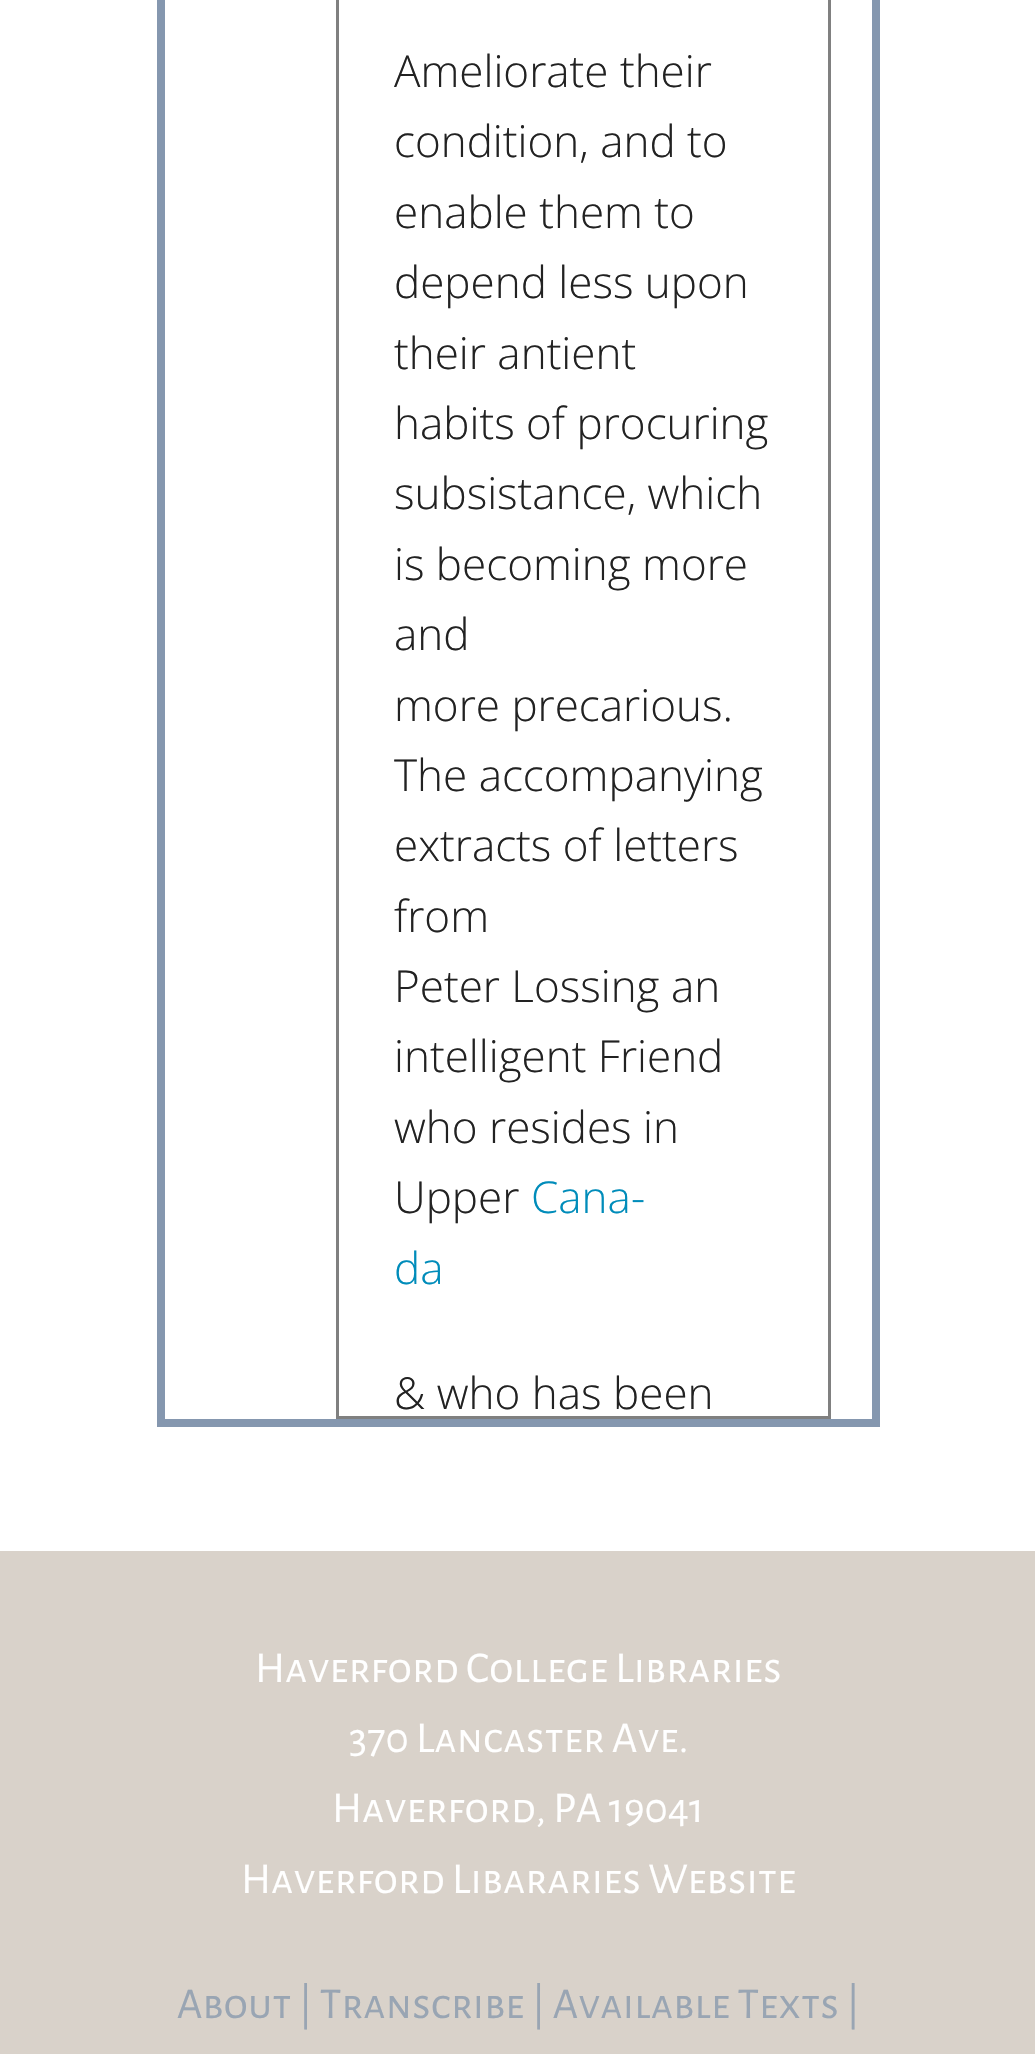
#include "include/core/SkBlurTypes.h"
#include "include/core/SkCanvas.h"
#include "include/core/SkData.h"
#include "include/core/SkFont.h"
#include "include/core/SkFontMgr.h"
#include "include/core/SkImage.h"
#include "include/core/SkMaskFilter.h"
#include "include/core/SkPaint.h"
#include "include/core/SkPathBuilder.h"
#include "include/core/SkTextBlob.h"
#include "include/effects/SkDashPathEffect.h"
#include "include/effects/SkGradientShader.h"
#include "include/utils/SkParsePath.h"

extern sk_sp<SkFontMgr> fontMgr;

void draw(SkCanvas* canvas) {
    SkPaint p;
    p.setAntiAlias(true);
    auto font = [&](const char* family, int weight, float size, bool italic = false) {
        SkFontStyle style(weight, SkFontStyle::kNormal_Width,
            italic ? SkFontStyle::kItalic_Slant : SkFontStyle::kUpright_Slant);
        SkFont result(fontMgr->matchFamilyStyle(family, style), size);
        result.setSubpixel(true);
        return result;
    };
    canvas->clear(0xFFFFFFFF);
    p.setStyle(SkPaint::kStroke_Style);
    p.setStrokeWidth(8);
    p.setColor(0xFF8597AF);
    canvas->drawRect(SkRect::MakeLTRB(161, -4, 876, 1423), p);
    p.setStrokeWidth(3);
    p.setColor(0xFF808080);
    canvas->drawRect(SkRect::MakeLTRB(337.5f, -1.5f, 829.5f, 1417.5f), p);
    auto font1 = font("Open Sans", 300, 44);
    p.setStyle(SkPaint::kFill_Style);
    p.setColor(0xFF222222);
    {
        const struct { const char* s; float x, y; } items[] = {
            {"Ameliorate their", 394, 87},
            {"condition, and to", 394, 157},
            {"enable them to", 394, 228},
            {"depend less upon", 394, 298},
            {"their antient", 394, 369},
            {"habits of procuring", 394, 439},
            {"subsistance, which", 394, 509},
            {"is becoming more", 394, 580},
            {"and", 394, 650},
            {"more precarious.", 394, 721},
            {"The accompanying", 394, 791},
            {"extracts of letters", 394, 861},
            {"from", 394, 932},
            {"Peter Lossing an", 394, 1002},
            {"intelligent Friend", 394, 1072},
            {"who resides in", 394, 1143},
            {"Upper", 394, 1213},
        };
        for (auto [s, x, y] : items) {
            canvas->drawString(s, x, y, font1, p);
        }
    }
    p.setColor(0xFF008CBA);
    canvas->drawString("Cana-", 531, 1213, font1, p);
    canvas->drawString("da", 394, 1284, font1, p);
    p.setColor(0xFF222222);
    canvas->drawString("& who has been", 394, 1409, font1, p);
    p.setColor(0xFFD9D2CA);
    canvas->drawRect(SkRect::MakeLTRB(0, 1551, 1035, 2054), p);
    auto font2 = font("Alegreya Sans SC", 400, 44);
    p.setColor(0xFFFFFFFF);
    {
        const struct { const char* s; float x, y; } items[] = {
            {"Haverford College Libraries", 255, 1682},
            {"370 Lancaster Ave.", 349, 1752},
            {"Haverford, PA 19041", 332, 1822},
            {"Haverford Libararies Website", 241, 1893},
        };
        for (auto [s, x, y] : items) {
            canvas->drawString(s, x, y, font2, p);
        }
    }
    p.setColor(0xFF99A5B3);
    canvas->drawString("About | Transcribe | Available Texts |", 177, 2018, font2, p);
}
